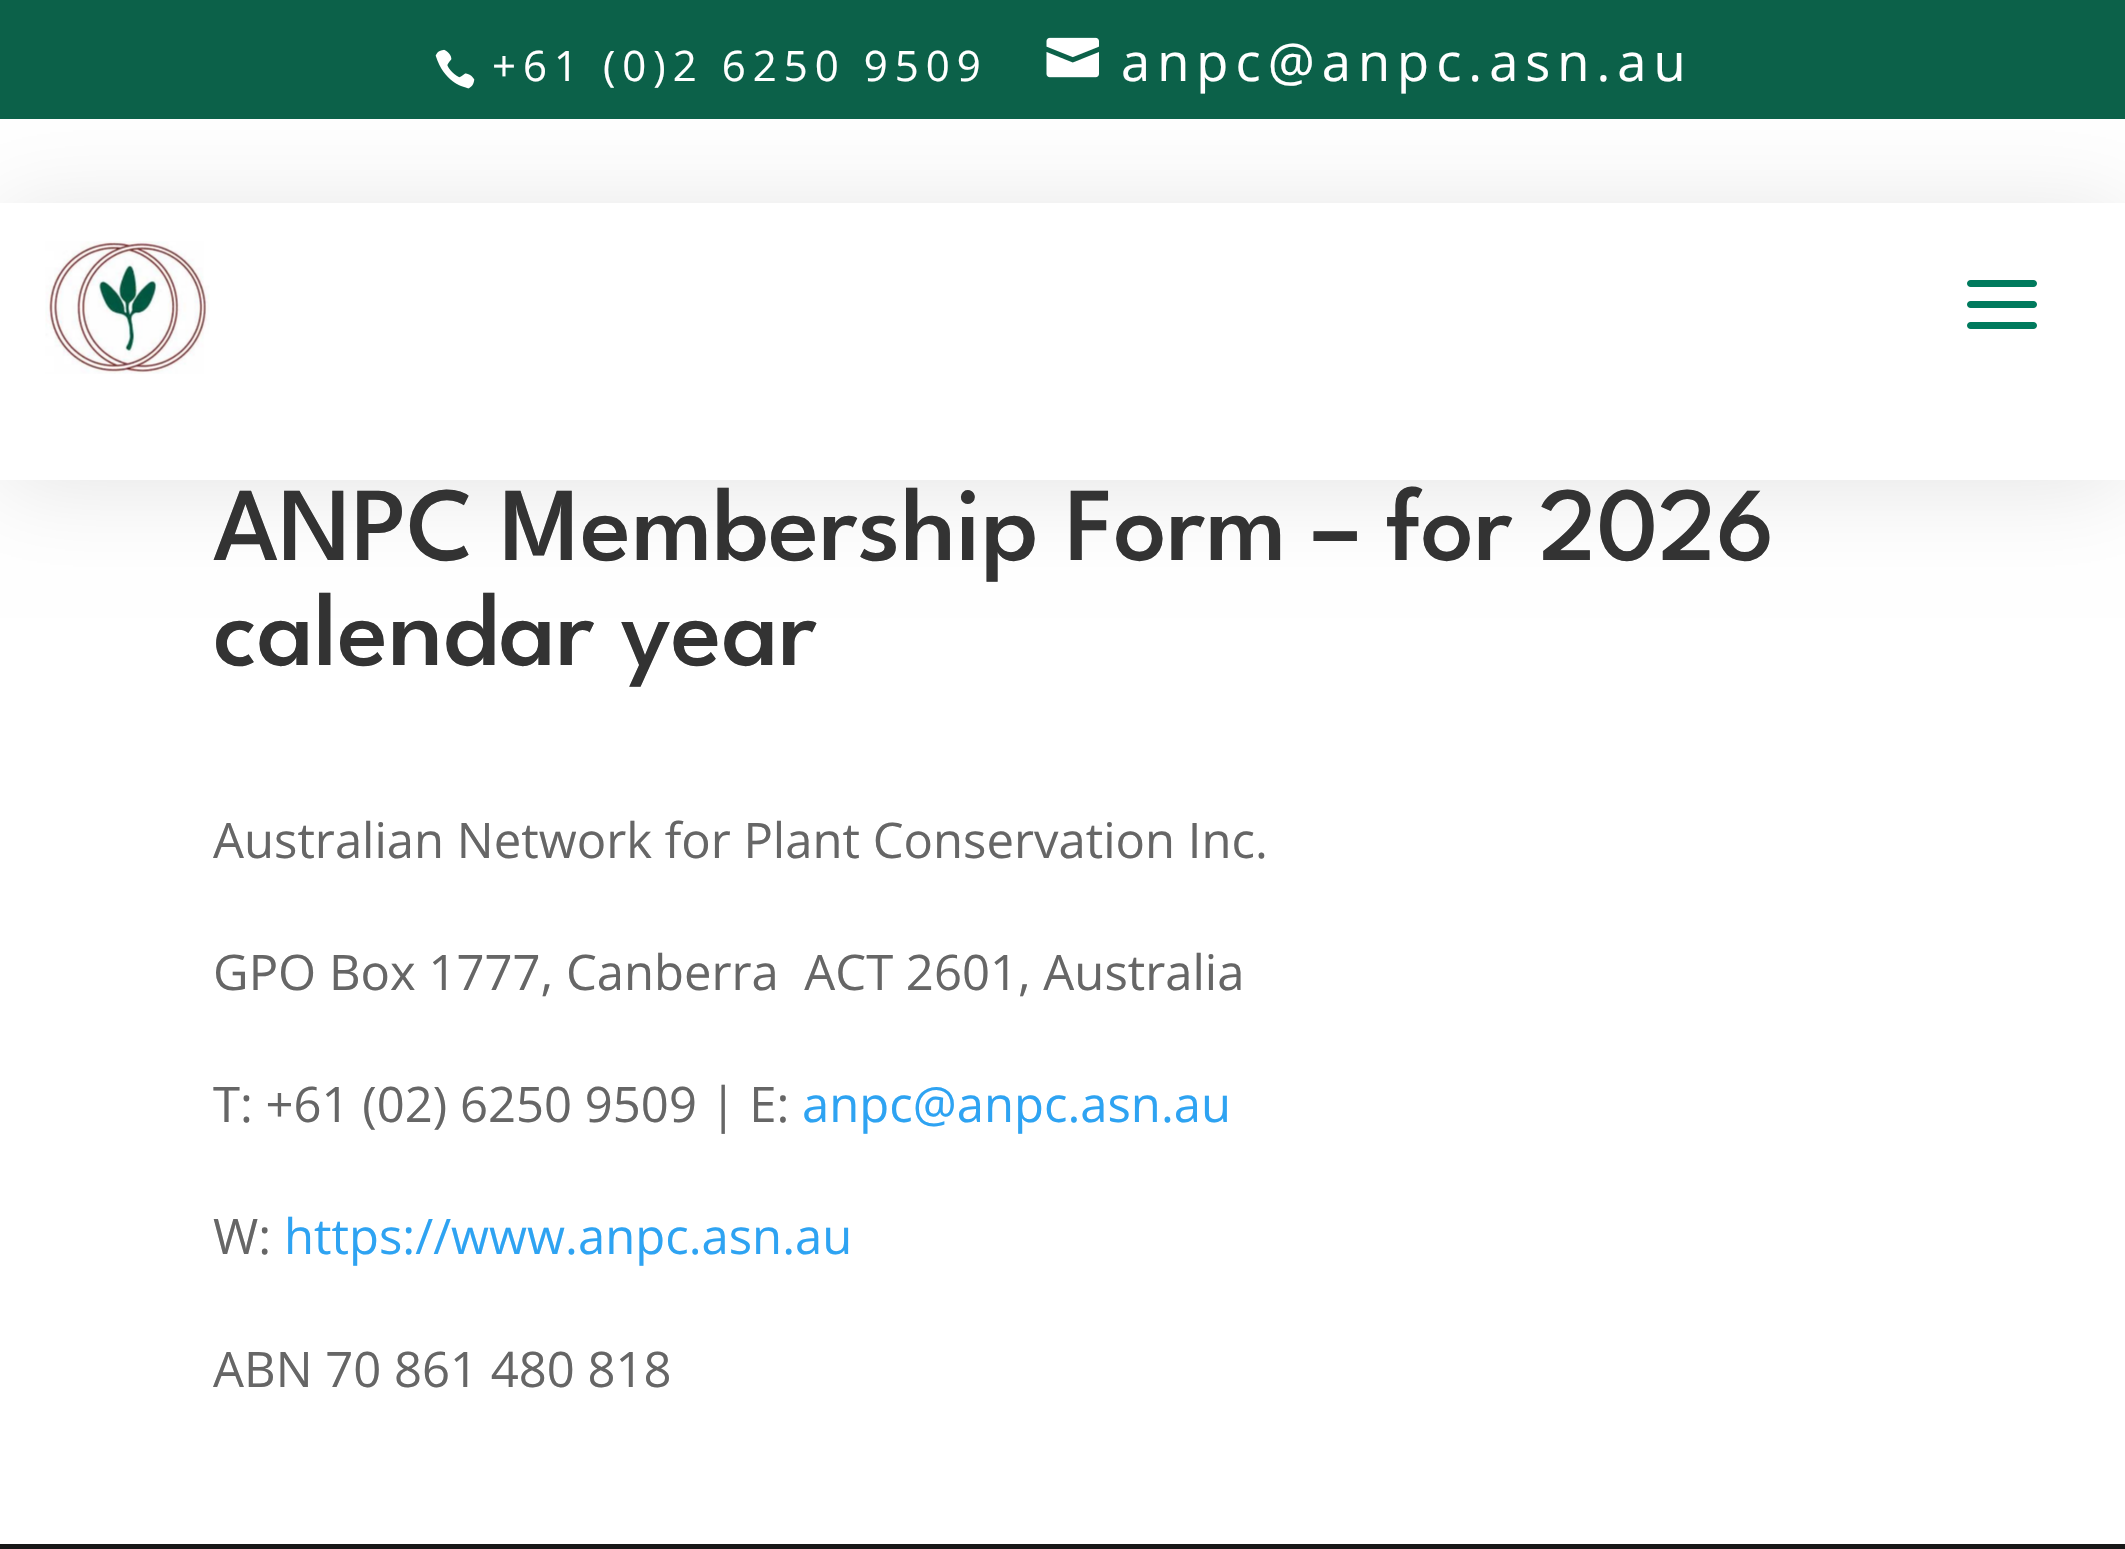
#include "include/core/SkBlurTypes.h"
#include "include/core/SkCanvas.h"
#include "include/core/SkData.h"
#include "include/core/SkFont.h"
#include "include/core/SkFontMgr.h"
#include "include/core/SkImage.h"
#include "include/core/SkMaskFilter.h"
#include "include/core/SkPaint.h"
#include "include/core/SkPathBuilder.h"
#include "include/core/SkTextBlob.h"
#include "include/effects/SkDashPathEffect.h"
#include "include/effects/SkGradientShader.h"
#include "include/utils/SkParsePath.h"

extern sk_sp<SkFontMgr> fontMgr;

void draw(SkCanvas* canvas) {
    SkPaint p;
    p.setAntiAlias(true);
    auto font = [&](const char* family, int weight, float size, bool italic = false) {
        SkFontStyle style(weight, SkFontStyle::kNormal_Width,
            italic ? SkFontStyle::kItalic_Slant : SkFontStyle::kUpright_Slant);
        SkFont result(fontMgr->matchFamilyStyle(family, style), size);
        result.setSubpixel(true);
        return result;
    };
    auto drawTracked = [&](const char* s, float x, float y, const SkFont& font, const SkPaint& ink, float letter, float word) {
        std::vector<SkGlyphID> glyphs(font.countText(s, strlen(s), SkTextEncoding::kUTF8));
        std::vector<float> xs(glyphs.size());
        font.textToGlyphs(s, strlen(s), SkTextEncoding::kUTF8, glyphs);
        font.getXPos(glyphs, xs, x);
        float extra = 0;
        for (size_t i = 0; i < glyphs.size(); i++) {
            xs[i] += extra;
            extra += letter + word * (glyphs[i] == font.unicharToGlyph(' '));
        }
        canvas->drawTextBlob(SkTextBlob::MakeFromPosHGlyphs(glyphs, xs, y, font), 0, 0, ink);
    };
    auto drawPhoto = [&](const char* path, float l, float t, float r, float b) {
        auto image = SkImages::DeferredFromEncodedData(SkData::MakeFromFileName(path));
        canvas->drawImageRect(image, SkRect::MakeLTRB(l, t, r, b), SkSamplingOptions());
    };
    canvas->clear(0xFFFFFFFF);
    p.setColor(0x1A000000);
    p.setMaskFilter(SkMaskFilter::MakeBlur(kNormal_SkBlurStyle, 44));
    canvas->drawRect(SkRect::MakeLTRB(0, 210, 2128, 487), p);
    p.setMaskFilter(nullptr);
    p.setColor(0xFF0C6149);
    canvas->drawRect(SkRect::MakeLTRB(0, 0, 2125, 119), p);
    drawPhoto("media/1.png", 435, 49, 475, 89);
    auto font1 = font("Open Sans", 400, 42);
    p.setColor(0xFFFFFFFF);
    drawTracked("+61 (0)2 6250 9509", 492, 81, font1, p, 7, 0);
    drawPhoto("media/2.png", 1046, 37, 1099, 78);
    auto font2 = font("Open Sans", 400, 52.5f);
    drawTracked("anpc@anpc.asn.au", 1121, 81, font2, p, 7, 0);
    canvas->drawRect(SkRect::MakeLTRB(0, 203, 2125, 480), p);
    drawPhoto("media/3.png", 45, 241, 210, 374);
    drawPhoto("media/4.png", 1967, 280, 2037, 329);
    auto font3 = font("League Spartan", 100, 105);
    p.setColor(0xFF333333);
    canvas->drawString("ANPC Membership Form – for 2026", 213, 560, font3, p);
    canvas->drawString("calendar year", 213, 665, font3, p);
    auto font4 = font("Open Sans", 400, 49);
    p.setColor(0xFF666666);
    {
        const struct { const char* s; float x, y; } items[] = {
            {"Australian Network for Plant Conservation Inc.", 213, 858},
            {"GPO Box 1777, Canberra  ACT 2601, Australia", 213, 990},
            {"T: +61 (02) 6250 9509 | E:", 213, 1122},
        };
        for (auto [s, x, y] : items) {
            canvas->drawString(s, x, y, font4, p);
        }
    }
    p.setColor(0xFF2EA3F2);
    canvas->drawString("anpc@anpc.asn.au", 802, 1122, font4, p);
    p.setColor(0xFF666666);
    canvas->drawString("W:", 213, 1254, font4, p);
    p.setColor(0xFF2EA3F2);
    canvas->drawString("https://www.anpc.asn.au", 284, 1254, font4, p);
    p.setColor(0xFF666666);
    canvas->drawString("ABN 70 861 480 818", 213, 1387, font4, p);
    p.setColor(0xFF171717);
    canvas->drawRect(SkRect::MakeLTRB(0, 1544, 2125, 1549), p);
}
